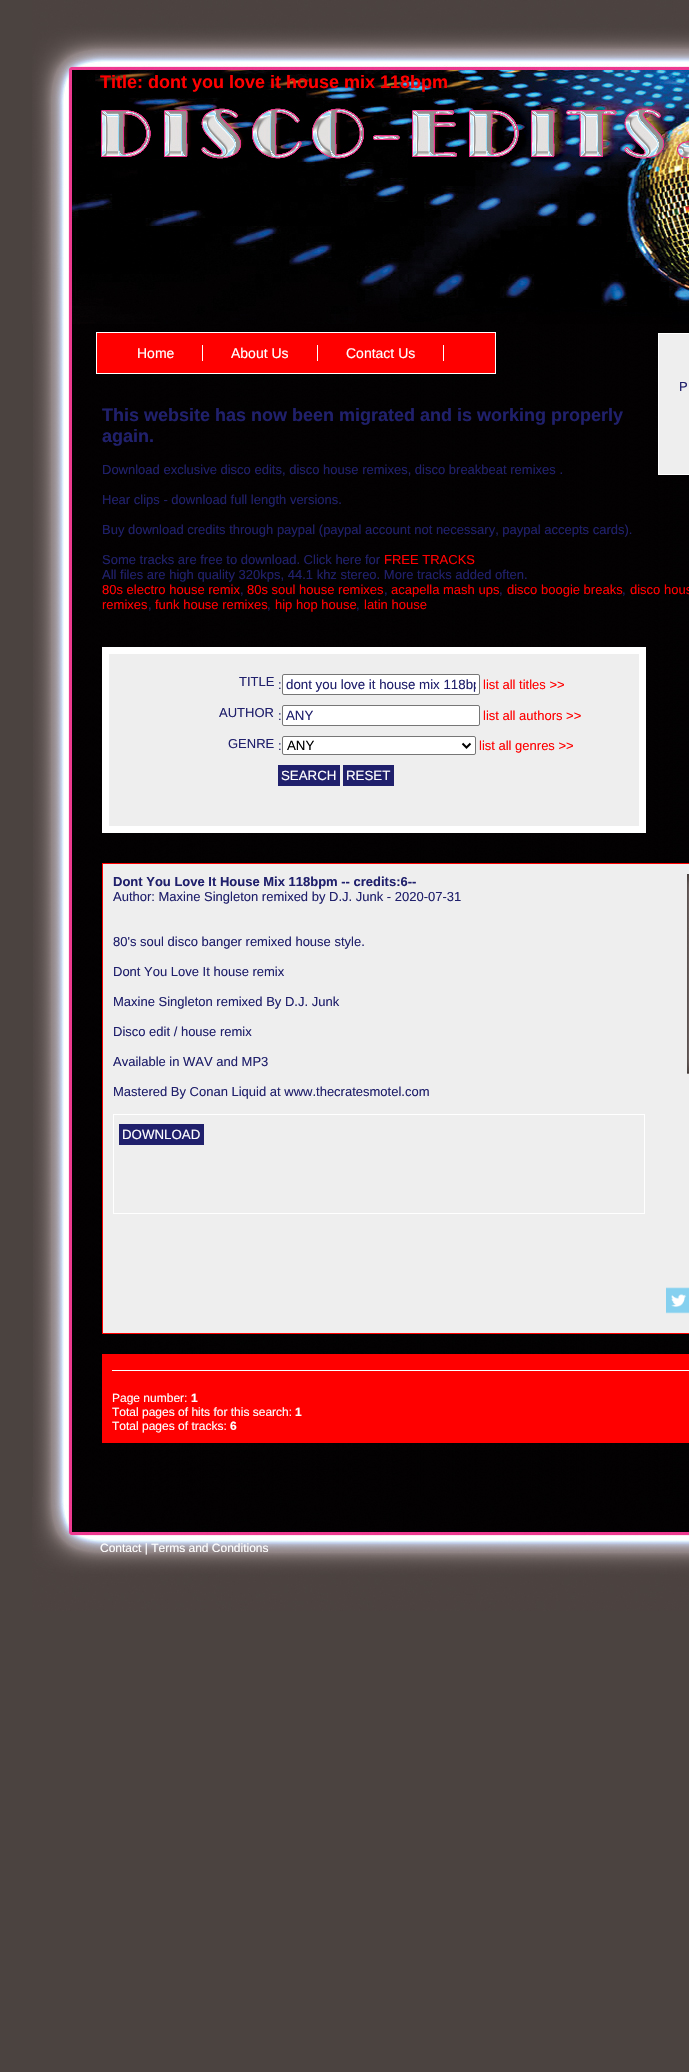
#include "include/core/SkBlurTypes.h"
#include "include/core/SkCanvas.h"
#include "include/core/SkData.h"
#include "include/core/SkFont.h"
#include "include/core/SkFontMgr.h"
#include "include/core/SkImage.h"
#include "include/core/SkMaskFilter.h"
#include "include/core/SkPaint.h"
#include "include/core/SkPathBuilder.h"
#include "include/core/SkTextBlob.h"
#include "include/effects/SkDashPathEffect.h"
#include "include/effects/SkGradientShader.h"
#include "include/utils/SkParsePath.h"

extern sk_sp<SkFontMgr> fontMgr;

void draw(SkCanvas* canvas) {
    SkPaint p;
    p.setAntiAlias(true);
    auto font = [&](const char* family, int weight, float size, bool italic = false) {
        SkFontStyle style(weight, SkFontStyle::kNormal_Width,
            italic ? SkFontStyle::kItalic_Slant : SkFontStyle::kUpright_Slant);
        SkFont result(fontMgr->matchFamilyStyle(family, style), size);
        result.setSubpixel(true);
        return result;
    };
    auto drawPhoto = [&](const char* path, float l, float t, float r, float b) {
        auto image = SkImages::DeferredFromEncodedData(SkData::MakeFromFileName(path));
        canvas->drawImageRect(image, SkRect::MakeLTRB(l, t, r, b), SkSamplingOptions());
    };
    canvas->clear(0xFF4B4340);
    drawPhoto("media/1.png", 33, 324, 689, 1497);
    drawPhoto("media/2.png", 32, 0, 689, 324);
    auto font1 = font("Liberation Sans", 700, 18);
    p.setColor(0xFFFF0000);
    canvas->drawString("Title: dont you love it house mix 118bpm", 100, 88, font1, p);
    canvas->drawRect(SkRect::MakeLTRB(96.5f, 332.5f, 495.5f, 373.5f), p);
    p.setStyle(SkPaint::kStroke_Style);
    p.setStrokeWidth(1);
    p.setColor(0xFFFFFFFF);
    canvas->drawRect(SkRect::MakeLTRB(96.5f, 332.5f, 495.5f, 373.5f), p);
    auto font2 = font("Liberation Sans", 400, 14);
    p.setStyle(SkPaint::kFill_Style);
    canvas->drawString("Home", 137, 358, font2, p);
    canvas->drawRect(SkRect::MakeLTRB(202, 345, 203, 361), p);
    canvas->drawString("About Us", 231, 358, font2, p);
    canvas->drawRect(SkRect::MakeLTRB(317, 345, 318, 361), p);
    canvas->drawString("Contact Us", 346, 358, font2, p);
    canvas->drawRect(SkRect::MakeLTRB(443, 345, 444, 361), p);
    p.setColor(0xFFEEEEEE);
    canvas->drawRect(SkRect::MakeLTRB(658.5f, 333.5f, 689.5f, 474.5f), p);
    p.setStyle(SkPaint::kStroke_Style);
    p.setColor(0xFFFFFFFF);
    canvas->drawRect(SkRect::MakeLTRB(658.5f, 333.5f, 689.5f, 474.5f), p);
    auto font3 = font("Liberation Sans", 400, 13);
    p.setStyle(SkPaint::kFill_Style);
    p.setColor(0xFF20206C);
    canvas->drawString("P", 679, 391, font3, p);
    canvas->drawString("This website has now been migrated and is working properly", 102, 421, font1, p);
    canvas->drawString("again.", 102, 442, font1, p);
    {
        const struct { const char* s; float x, y; } items[] = {
            {"Download exclusive disco edits, disco house remixes, disco breakbeat remixes .", 102, 474},
            {"Hear clips - download full length versions.", 102, 504},
            {"Buy download credits through paypal (paypal account not necessary, paypal accepts cards).", 102, 534},
            {"Some tracks are free to download. Click here for", 102, 564},
        };
        for (auto [s, x, y] : items) {
            canvas->drawString(s, x, y, font3, p);
        }
    }
    p.setColor(0xFFFF0000);
    canvas->drawString("FREE TRACKS", 384, 564, font3, p);
    p.setColor(0xFF20206C);
    canvas->drawString("All files are high quality 320kps, 44.1 khz stereo. More tracks added often.", 102, 579, font3, p);
    p.setColor(0xFFFF0000);
    canvas->drawString("80s electro house remix", 102, 594, font3, p);
    p.setColor(0xFF20206C);
    canvas->drawString(",", 240, 594, font3, p);
    p.setColor(0xFFFF0000);
    canvas->drawString("80s soul house remixes", 247, 594, font3, p);
    p.setColor(0xFF20206C);
    canvas->drawString(",", 384, 594, font3, p);
    p.setColor(0xFFFF0000);
    canvas->drawString("acapella mash ups", 391, 594, font3, p);
    p.setColor(0xFF20206C);
    canvas->drawString(",", 499, 594, font3, p);
    p.setColor(0xFFFF0000);
    canvas->drawString("disco boogie breaks", 507, 594, font3, p);
    p.setColor(0xFF20206C);
    canvas->drawString(",", 622, 594, font3, p);
    p.setColor(0xFFFF0000);
    canvas->drawString("disco hous", 630, 594, font3, p);
    canvas->drawString("remixes", 102, 609, font3, p);
    p.setColor(0xFF20206C);
    canvas->drawString(",", 148, 609, font3, p);
    p.setColor(0xFFFF0000);
    canvas->drawString("funk house remixes", 155, 609, font3, p);
    p.setColor(0xFF20206C);
    canvas->drawString(",", 267, 609, font3, p);
    p.setColor(0xFFFF0000);
    canvas->drawString("hip hop house", 275, 609, font3, p);
    p.setColor(0xFF20206C);
    canvas->drawString(",", 356, 609, font3, p);
    p.setColor(0xFFFF0000);
    canvas->drawString("latin house", 364, 609, font3, p);
    p.setColor(0xFFEEEEEE);
    canvas->drawRect(SkRect::MakeLTRB(105.5f, 650.5f, 642.5f, 829.5f), p);
    p.setStyle(SkPaint::kStroke_Style);
    p.setStrokeWidth(7);
    p.setColor(0xFFFFFFFF);
    canvas->drawRect(SkRect::MakeLTRB(105.5f, 650.5f, 642.5f, 829.5f), p);
    p.setStyle(SkPaint::kFill_Style);
    p.setColor(0xFF20206C);
    canvas->drawString("TITLE", 239, 686, font3, p);
    canvas->drawString(":", 278, 689, font3, p);
    p.setColor(0xFFFFFFFF);
    canvas->drawRoundRect(SkRect::MakeLTRB(282.5f, 674.5f, 479.5f, 694.5f), 1.5f, 1.5f, p);
    p.setStyle(SkPaint::kStroke_Style);
    p.setStrokeWidth(1);
    p.setColor(0xFF767676);
    canvas->drawRoundRect(SkRect::MakeLTRB(282.5f, 674.5f, 479.5f, 694.5f), 1.5f, 1.5f, p);
    canvas->save();
    canvas->clipRect(SkRect::MakeLTRB(286, 677, 476, 692));
    auto font4 = font("Liberation Sans", 400, 13.3f);
    p.setStyle(SkPaint::kFill_Style);
    p.setColor(0xFF20206C);
    canvas->drawString("dont you love it house mix 118bp", 286, 689, font4, p);
    canvas->restore();
    p.setColor(0xFFFF0000);
    canvas->drawString("list all titles >>", 483, 689, font3, p);
    p.setColor(0xFF20206C);
    canvas->drawString("AUTHOR", 219, 717, font3, p);
    canvas->drawString(":", 278, 720, font3, p);
    p.setColor(0xFFFFFFFF);
    canvas->drawRoundRect(SkRect::MakeLTRB(282.5f, 705.5f, 479.5f, 725.5f), 1.5f, 1.5f, p);
    p.setStyle(SkPaint::kStroke_Style);
    p.setColor(0xFF767676);
    canvas->drawRoundRect(SkRect::MakeLTRB(282.5f, 705.5f, 479.5f, 725.5f), 1.5f, 1.5f, p);
    p.setStyle(SkPaint::kFill_Style);
    p.setColor(0xFF20206C);
    canvas->drawString("ANY", 286, 720, font4, p);
    p.setColor(0xFFFF0000);
    canvas->drawString("list all authors >>", 483, 720, font3, p);
    p.setColor(0xFF20206C);
    canvas->drawString("GENRE", 228, 748, font3, p);
    canvas->drawString(":", 278, 750, font3, p);
    p.setColor(0xFFFFFFFF);
    canvas->drawRoundRect(SkRect::MakeLTRB(282.5f, 736.5f, 475.5f, 754.5f), 1.5f, 1.5f, p);
    p.setStyle(SkPaint::kStroke_Style);
    p.setColor(0xFF767676);
    canvas->drawRoundRect(SkRect::MakeLTRB(282.5f, 736.5f, 475.5f, 754.5f), 1.5f, 1.5f, p);
    p.setStrokeWidth(2);
    p.setColor(0xFF000000);
    canvas->drawPath(SkPathBuilder().moveTo(462.5f, 743.5f).lineTo(466.5f, 747.5f).lineTo(470.5f, 743.5f).detach(), p);
    p.setStyle(SkPaint::kFill_Style);
    canvas->drawString("ANY", 287, 750, font4, p);
    p.setColor(0xFFFF0000);
    canvas->drawString("list all genres >>", 479, 750, font3, p);
    p.setColor(0xFF20206C);
    canvas->drawRect(SkRect::MakeLTRB(278, 765, 340, 786), p);
    p.setColor(0xFFFFFFFF);
    canvas->drawString("SEARCH", 281, 780, font4, p);
    p.setColor(0xFF20206C);
    canvas->drawRect(SkRect::MakeLTRB(343, 765, 394, 786), p);
    p.setColor(0xFFFFFFFF);
    canvas->drawString("RESET", 346, 780, font4, p);
    p.setColor(0xFFEEEEEE);
    canvas->drawRect(SkRect::MakeLTRB(102.5f, 863.5f, 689.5f, 1333.5f), p);
    p.setStyle(SkPaint::kStroke_Style);
    p.setStrokeWidth(1);
    p.setColor(0xFFFF0000);
    canvas->drawRect(SkRect::MakeLTRB(102.5f, 863.5f, 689.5f, 1333.5f), p);
    auto font5 = font("Liberation Sans", 700, 13);
    p.setStyle(SkPaint::kFill_Style);
    p.setColor(0xFF20206C);
    canvas->drawString("Dont You Love It House Mix 118bpm -- credits:6--", 113, 886, font5, p);
    {
        const struct { const char* s; float x, y; } items[] = {
            {"Author: Maxine Singleton remixed by D.J. Junk - 2020-07-31", 113, 901},
            {"80's soul disco banger remixed house style.", 113, 946},
            {"Dont You Love It house remix", 113, 976},
            {"Maxine Singleton remixed By D.J. Junk", 113, 1006},
            {"Disco edit / house remix", 113, 1036},
            {"Available in WAV and MP3", 113, 1066},
            {"Mastered By Conan Liquid at www.thecratesmotel.com", 113, 1096},
        };
        for (auto [s, x, y] : items) {
            canvas->drawString(s, x, y, font3, p);
        }
    }
    p.setStyle(SkPaint::kStroke_Style);
    p.setColor(0xFFFFFFFF);
    canvas->drawRect(SkRect::MakeLTRB(113.5f, 1114.5f, 644.5f, 1213.5f), p);
    p.setStyle(SkPaint::kFill_Style);
    p.setColor(0xFF20206C);
    canvas->drawRect(SkRect::MakeLTRB(119, 1124, 204, 1145), p);
    p.setColor(0xFFFFFFFF);
    canvas->drawString("DOWNLOAD", 122, 1139, font4, p);
    drawPhoto("media/3.png", 687, 874, 689, 1074);
    drawPhoto("media/4.png", 666, 1287, 689, 1314);
    p.setColor(0xFFFF0000);
    canvas->drawRect(SkRect::MakeLTRB(102, 1354, 689, 1443), p);
    p.setColor(0xFFFFFFFF);
    canvas->drawRect(SkRect::MakeLTRB(112, 1370, 689, 1371), p);
    auto font6 = font("Liberation Sans", 400, 12);
    canvas->drawString("Page number:", 112, 1402, font6, p);
    auto font7 = font("Liberation Sans", 700, 12);
    canvas->drawString("1", 191, 1402, font7, p);
    canvas->drawString("Total pages of hits for this search:", 112, 1416, font6, p);
    canvas->drawString("1", 295, 1416, font7, p);
    canvas->drawString("Total pages of tracks:", 112, 1430, font6, p);
    canvas->drawString("6", 230, 1430, font7, p);
    drawPhoto("media/5.png", 32, 1497, 689, 1611);
    canvas->drawString("Contact | Terms and Conditions", 100, 1552, font6, p);
}
